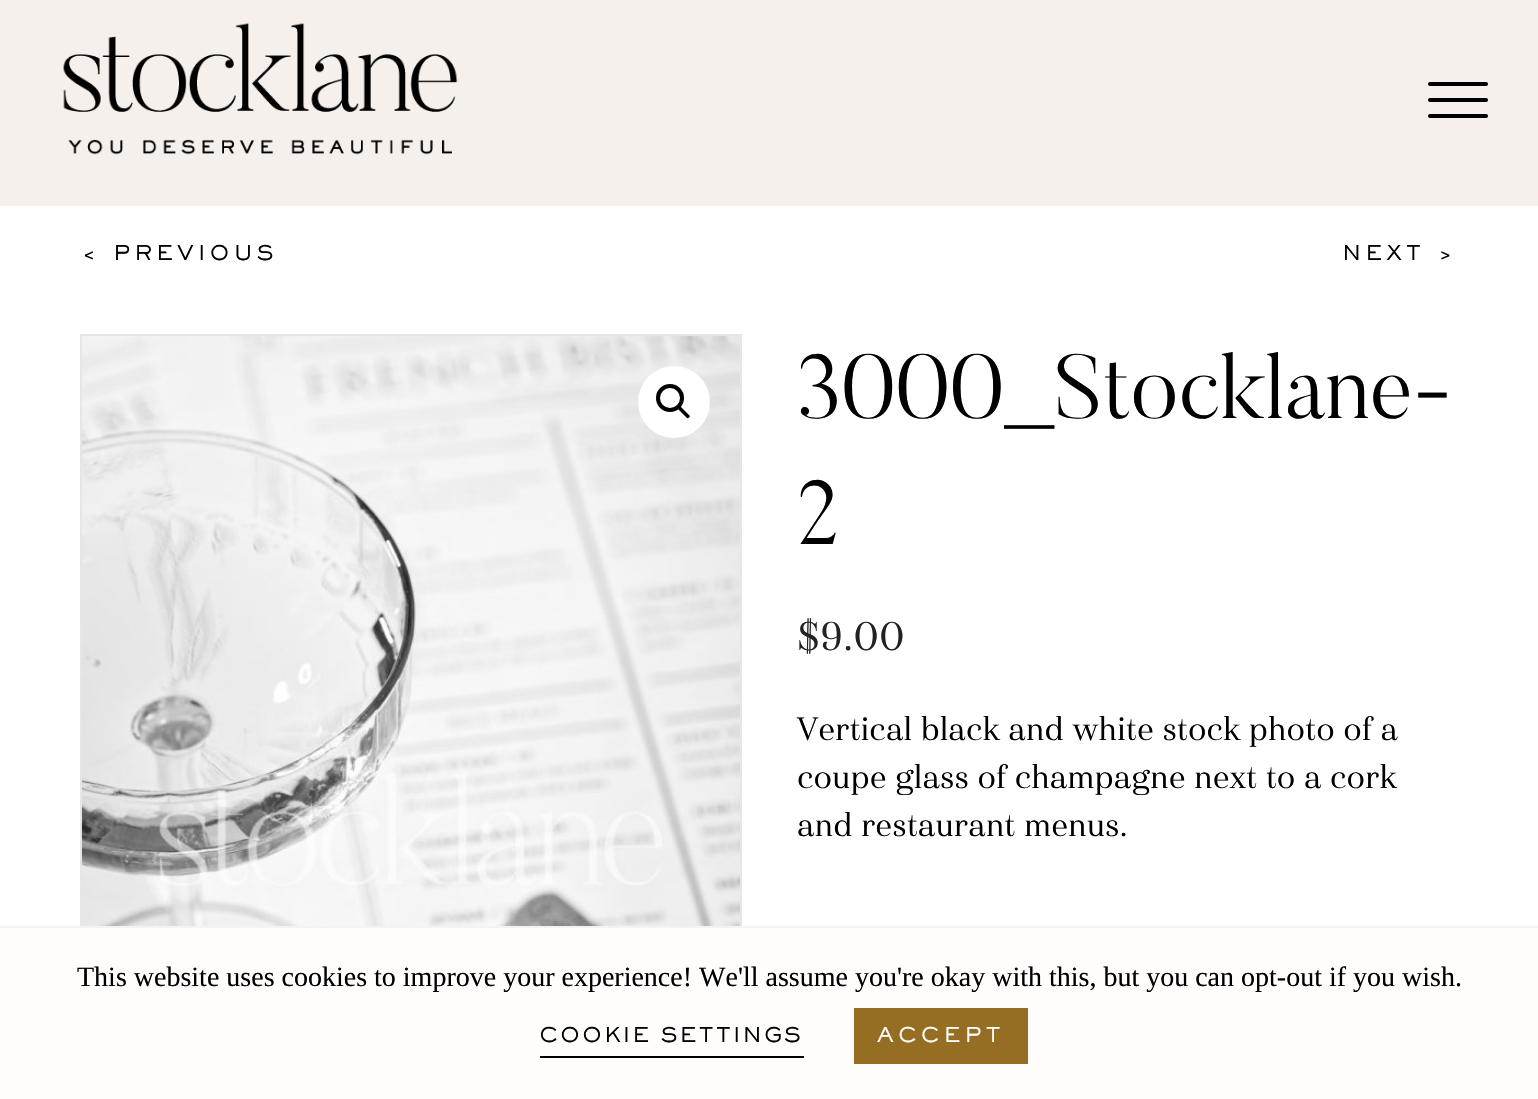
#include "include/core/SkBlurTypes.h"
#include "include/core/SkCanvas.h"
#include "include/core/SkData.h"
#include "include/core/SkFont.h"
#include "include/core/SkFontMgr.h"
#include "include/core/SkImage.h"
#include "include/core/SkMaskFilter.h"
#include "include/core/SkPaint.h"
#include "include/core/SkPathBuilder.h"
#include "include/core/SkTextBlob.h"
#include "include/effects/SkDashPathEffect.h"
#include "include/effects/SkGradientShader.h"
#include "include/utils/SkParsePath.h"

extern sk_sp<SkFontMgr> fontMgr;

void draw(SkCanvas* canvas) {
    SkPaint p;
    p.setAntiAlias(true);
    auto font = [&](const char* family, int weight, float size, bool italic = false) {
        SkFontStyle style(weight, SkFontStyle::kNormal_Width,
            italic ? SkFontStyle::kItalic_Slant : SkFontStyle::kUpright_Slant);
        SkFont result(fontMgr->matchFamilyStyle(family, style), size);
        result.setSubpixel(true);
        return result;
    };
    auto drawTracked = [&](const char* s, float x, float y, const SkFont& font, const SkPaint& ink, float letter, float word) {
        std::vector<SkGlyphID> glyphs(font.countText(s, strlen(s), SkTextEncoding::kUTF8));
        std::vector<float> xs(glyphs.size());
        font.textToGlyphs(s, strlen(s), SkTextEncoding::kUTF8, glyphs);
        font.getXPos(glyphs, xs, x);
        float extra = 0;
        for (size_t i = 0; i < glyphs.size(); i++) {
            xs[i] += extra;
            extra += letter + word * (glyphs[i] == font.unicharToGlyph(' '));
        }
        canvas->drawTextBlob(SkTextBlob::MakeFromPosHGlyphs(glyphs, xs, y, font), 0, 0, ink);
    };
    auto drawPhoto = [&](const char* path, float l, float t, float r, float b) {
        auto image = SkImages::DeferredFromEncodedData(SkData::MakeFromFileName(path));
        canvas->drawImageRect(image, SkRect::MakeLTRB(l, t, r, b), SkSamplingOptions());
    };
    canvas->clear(0xFFFFFFFF);
    p.setColor(0xFFF5F0EC);
    canvas->drawRect(SkRect::MakeLTRB(0, 0, 1538, 206), p);
    drawPhoto("media/1.png", 63, 23, 458, 155);
    p.setColor(0xFF000000);
    canvas->drawRoundRect(SkRect::MakeLTRB(1428, 98, 1488, 102), 2, 2, p);
    canvas->drawRoundRect(SkRect::MakeLTRB(1428, 82, 1488, 86), 2, 2, p);
    canvas->drawRoundRect(SkRect::MakeLTRB(1428, 114, 1488, 118), 2, 2, p);
    auto font1 = font("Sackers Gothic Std", 500, 20);
    drawTracked("< PREVIOUS", 80, 260, font1, p, 4, 0);
    drawTracked("NEXT >", 1342, 260, font1, p, 4, 0);
    p.setStyle(SkPaint::kStroke_Style);
    p.setStrokeWidth(2);
    p.setColor(0xFFE6E6E6);
    canvas->drawRect(SkRect::MakeLTRB(81, 335, 741, 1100), p);
    drawPhoto("media/2.png", 82, 336, 740, 926);
    p.setStyle(SkPaint::kFill_Style);
    p.setColor(0xFFFFFFFF);
    canvas->drawCircle(674, 402, 36, p);
    p.setStyle(SkPaint::kStroke_Style);
    p.setStrokeWidth(4);
    p.setColor(0xFF000000);
    canvas->drawCircle(670, 398, 12, p);
    p.setStyle(SkPaint::kFill_Style);
    canvas->drawPath(SkPathBuilder().moveTo(678, 406.5f).cubicTo(678.5f, 405.5f, 680, 405.5f, 680.5f, 406.5f).lineTo(689, 415).cubicTo(690, 415.5f, 690, 417, 689, 417.5f).cubicTo(688.5f, 418.5f, 687, 418.5f, 686.5f, 417.5f).lineTo(678, 409).cubicTo(677, 408.5f, 677, 407, 678, 406.5f).close().detach(), p);
    auto font2 = font("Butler", 300, 90);
    canvas->drawString("3000_Stocklane-", 797, 418, font2, p);
    canvas->drawString("2", 797, 544, font2, p);
    auto font3 = font("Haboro", 500, 40);
    p.setColor(0xFF222222);
    canvas->drawString("$9.00", 797, 650, font3, p);
    auto font4 = font("Haboro", 500, 32);
    p.setColor(0xFF000000);
    {
        const struct { const char* s; float x, y; } items[] = {
            {"Vertical black and white stock photo of a", 797, 740},
            {"coupe glass of champagne next to a cork", 797, 788},
            {"and restaurant menus.", 797, 836},
        };
        for (auto [s, x, y] : items) {
            canvas->drawString(s, x, y, font4, p);
        }
    }
    p.setColor(0xFFFFFCFC);
    canvas->drawRect(SkRect::MakeLTRB(0, 928, 1538, 1099), p);
    p.setColor(0xFFF4F3F2);
    canvas->drawRect(SkRect::MakeLTRB(0, 926, 1538, 928), p);
    auto font5 = font("Liberation Serif", 400, 28);
    p.setColor(0xFF000000);
    canvas->drawString("This website uses cookies to improve your experience! We'll assume you're okay with this, but you can opt-out if you wish.", 77, 986, font5, p);
    drawTracked("COOKIE SETTINGS", 539, 1042, font1, p, 2, 0);
    canvas->drawRect(SkRect::MakeLTRB(540, 1056, 804, 1058), p);
    p.setColor(0xFF966E23);
    canvas->drawRect(SkRect::MakeLTRB(854, 1008, 1028, 1064), p);
    p.setColor(0xFFFFFFFF);
    drawTracked("ACCEPT", 877, 1042, font1, p, 4, 0);
}
